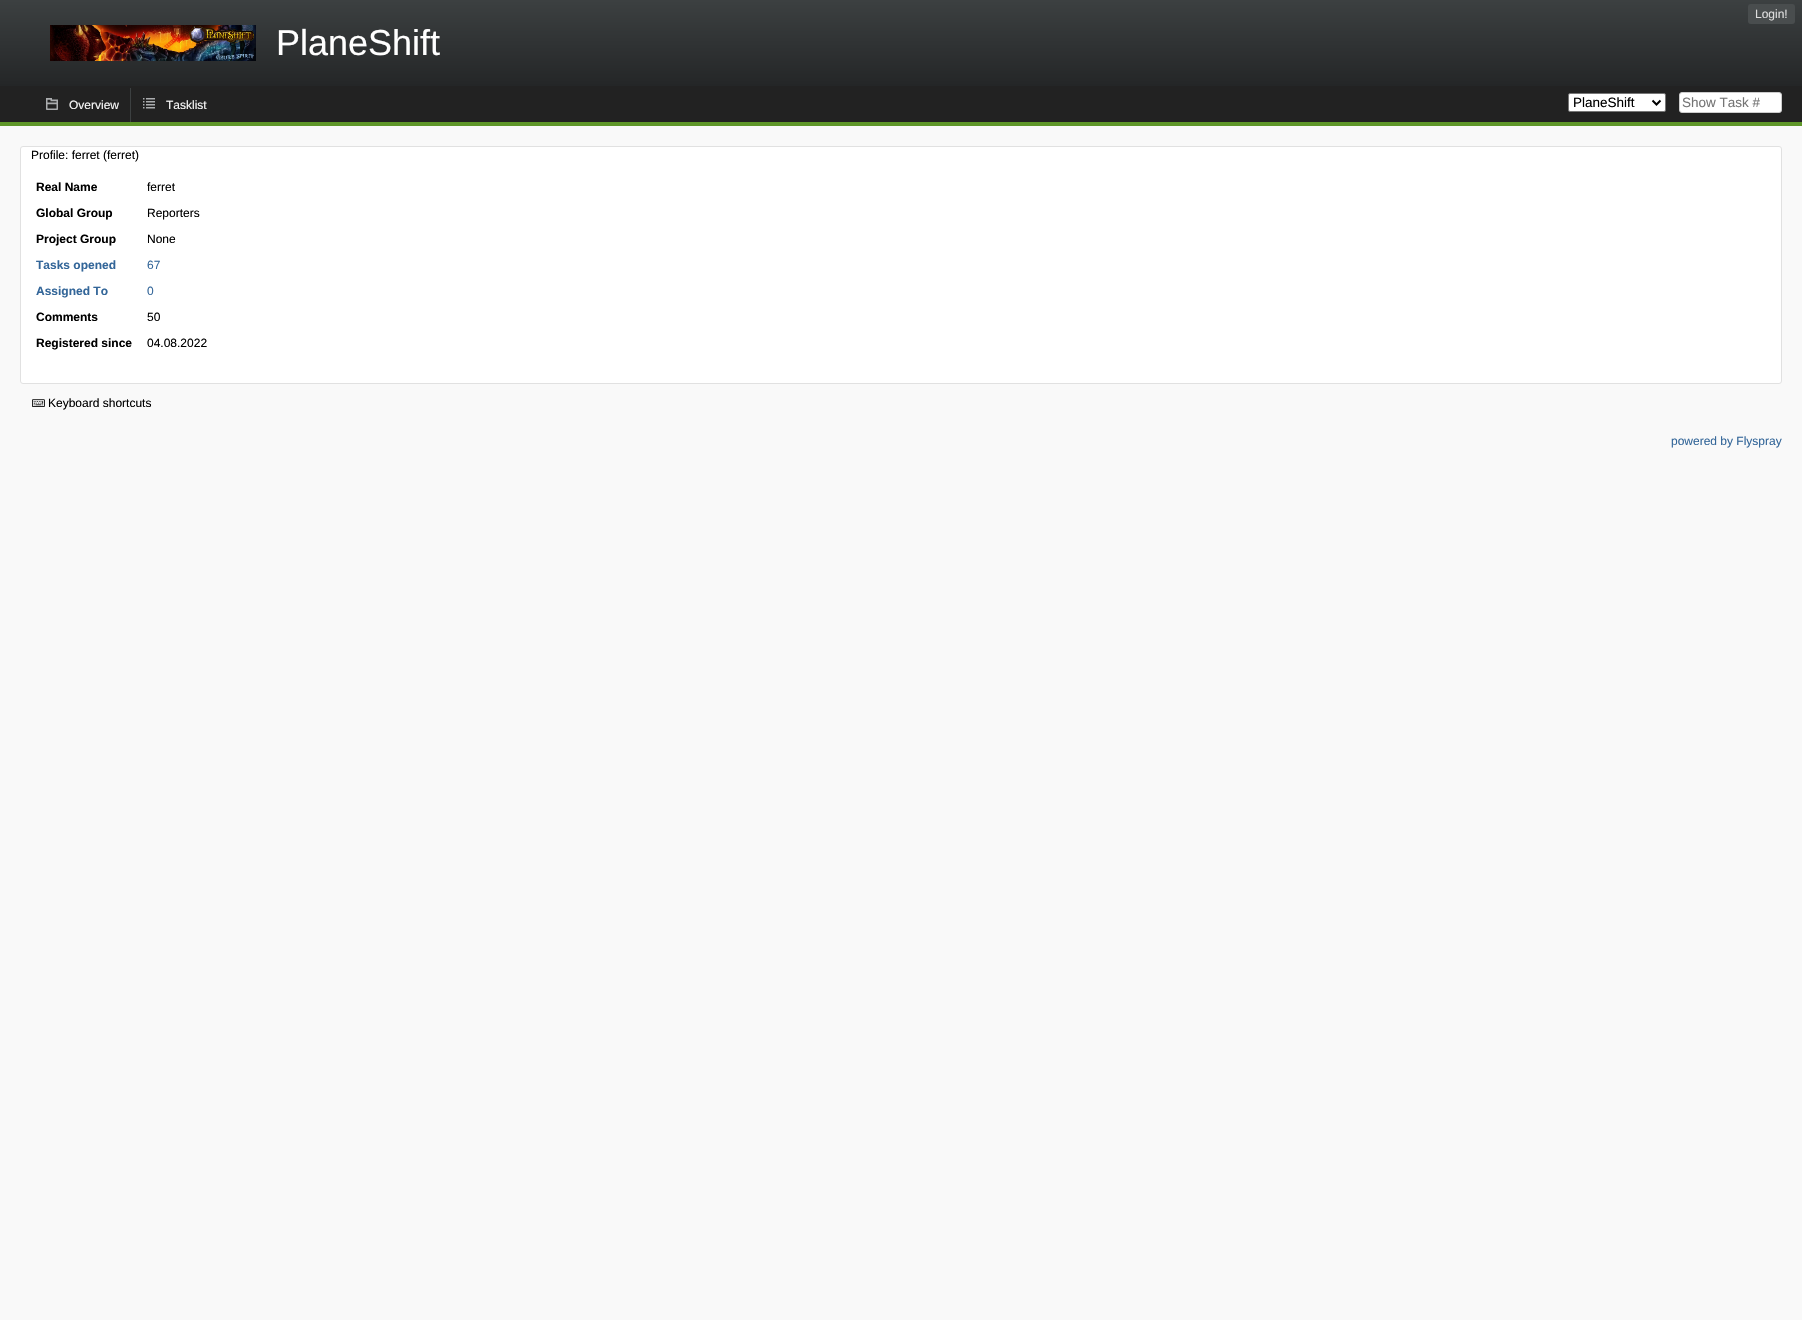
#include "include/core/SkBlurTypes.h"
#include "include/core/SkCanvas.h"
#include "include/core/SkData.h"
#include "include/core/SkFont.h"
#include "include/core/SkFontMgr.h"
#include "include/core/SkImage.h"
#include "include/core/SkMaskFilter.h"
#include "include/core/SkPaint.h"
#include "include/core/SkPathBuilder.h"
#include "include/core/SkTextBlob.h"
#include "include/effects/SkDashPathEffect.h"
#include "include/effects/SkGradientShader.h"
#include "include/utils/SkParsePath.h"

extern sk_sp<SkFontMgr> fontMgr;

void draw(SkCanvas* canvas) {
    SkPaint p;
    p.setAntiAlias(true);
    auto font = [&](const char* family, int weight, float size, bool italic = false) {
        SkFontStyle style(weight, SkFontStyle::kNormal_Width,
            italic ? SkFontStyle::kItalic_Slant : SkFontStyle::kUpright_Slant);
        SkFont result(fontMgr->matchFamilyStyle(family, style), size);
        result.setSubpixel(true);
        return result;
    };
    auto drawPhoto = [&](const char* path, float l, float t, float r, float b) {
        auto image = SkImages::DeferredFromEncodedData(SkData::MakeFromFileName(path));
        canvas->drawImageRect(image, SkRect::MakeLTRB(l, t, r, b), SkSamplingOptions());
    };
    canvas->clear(0xFFF9F9F9);
    {
        const SkColor colors[] = {0xFF3C4041, 0xFF242627};
        const float stops[] = {0, 1};
        const SkPoint ends[] = {{901, 0}, {901, 86}};
        p.setShader(SkGradientShader::MakeLinear(ends, colors, stops, 2, SkTileMode::kClamp));
        p.setAlpha(255);
    }
    canvas->drawRect(SkRect::MakeLTRB(0, 0, 1802, 86), p);
    p.setShader(nullptr);
    p.setColor(0xFF494D4E);
    canvas->drawRoundRect(SkRect::MakeLTRB(1748, 4, 1795, 24), 3, 3, p);
    auto font1 = font("Liberation Sans", 400, 12);
    p.setColor(0xFFDDDDDD);
    canvas->drawString("Login!", 1755, 18, font1, p);
    drawPhoto("media/1.png", 50, 25, 256, 61);
    auto font2 = font("Liberation Sans", 400, 36);
    p.setColor(0xFFFFFFFF);
    canvas->drawString("PlaneShift", 276, 55, font2, p);
    p.setColor(0xFF222222);
    canvas->drawRect(SkRect::MakeLTRB(0, 86, 1802, 122), p);
    p.setColor(0xFF5F9729);
    canvas->drawRect(SkRect::MakeLTRB(0, 122, 1802, 126), p);
    drawPhoto("media/2.png", 46, 98, 58, 110);
    p.setColor(0xFFF9F9F9);
    canvas->drawString("Overview", 69, 109, font1, p);
    drawPhoto("media/3.png", 143, 98, 155, 109);
    p.setColor(0xFF3C4041);
    canvas->drawRect(SkRect::MakeLTRB(130, 88, 131, 122), p);
    p.setColor(0xFFF9F9F9);
    canvas->drawString("Tasklist", 166, 109, font1, p);
    p.setColor(0xFFFFFFFF);
    canvas->drawRoundRect(SkRect::MakeLTRB(1568.5f, 93.5f, 1665.5f, 111.5f), 1.5f, 1.5f, p);
    p.setStyle(SkPaint::kStroke_Style);
    p.setStrokeWidth(1);
    p.setColor(0xFF767676);
    canvas->drawRoundRect(SkRect::MakeLTRB(1568.5f, 93.5f, 1665.5f, 111.5f), 1.5f, 1.5f, p);
    p.setStrokeWidth(2);
    p.setColor(0xFF000000);
    canvas->drawPath(SkPathBuilder().moveTo(1652.5f, 100.5f).lineTo(1656.5f, 104.5f).lineTo(1660.5f, 100.5f).detach(), p);
    auto font3 = font("Liberation Sans", 400, 13.5f);
    p.setStyle(SkPaint::kFill_Style);
    canvas->drawString("PlaneShift", 1573, 107, font3, p);
    p.setColor(0xFFFFFFFF);
    canvas->drawRoundRect(SkRect::MakeLTRB(1679.5f, 92.5f, 1781.5f, 112.5f), 2.5f, 2.5f, p);
    p.setStyle(SkPaint::kStroke_Style);
    p.setStrokeWidth(1);
    p.setColor(0xFFCCCCCC);
    canvas->drawRoundRect(SkRect::MakeLTRB(1679.5f, 92.5f, 1781.5f, 112.5f), 2.5f, 2.5f, p);
    p.setStyle(SkPaint::kFill_Style);
    p.setColor(0xFF757575);
    canvas->drawString("Show Task #", 1682, 107, font3, p);
    p.setColor(0xFFFFFFFF);
    canvas->drawRoundRect(SkRect::MakeLTRB(20.5f, 146.5f, 1781.5f, 383.5f), 2.5f, 2.5f, p);
    p.setStyle(SkPaint::kStroke_Style);
    p.setColor(0xFFE1E1E1);
    canvas->drawRoundRect(SkRect::MakeLTRB(20.5f, 146.5f, 1781.5f, 383.5f), 2.5f, 2.5f, p);
    p.setStyle(SkPaint::kFill_Style);
    p.setColor(0xFF000000);
    canvas->drawString("Profile: ferret (ferret)", 31, 159, font1, p);
    auto font4 = font("Liberation Sans", 700, 12);
    canvas->drawString("Real Name", 36, 191, font4, p);
    canvas->drawString("ferret", 147, 191, font1, p);
    canvas->drawString("Global Group", 36, 217, font4, p);
    canvas->drawString("Reporters", 147, 217, font1, p);
    canvas->drawString("Project Group", 36, 243, font4, p);
    canvas->drawString("None", 147, 243, font1, p);
    p.setColor(0xFF336699);
    canvas->drawString("Tasks opened", 36, 269, font4, p);
    canvas->drawString("67", 147, 269, font1, p);
    canvas->drawString("Assigned To", 36, 295, font4, p);
    canvas->drawString("0", 147, 295, font1, p);
    p.setColor(0xFF000000);
    canvas->drawString("Comments", 36, 321, font4, p);
    canvas->drawString("50", 147, 321, font1, p);
    canvas->drawString("Registered since", 36, 347, font4, p);
    canvas->drawString("04.08.2022", 147, 347, font1, p);
    drawPhoto("media/4.png", 32, 399, 45, 407);
    canvas->drawString("Keyboard shortcuts", 48, 407, font1, p);
    p.setColor(0xFF336699);
    canvas->drawString("powered by Flyspray", 1671, 445, font1, p);
}
